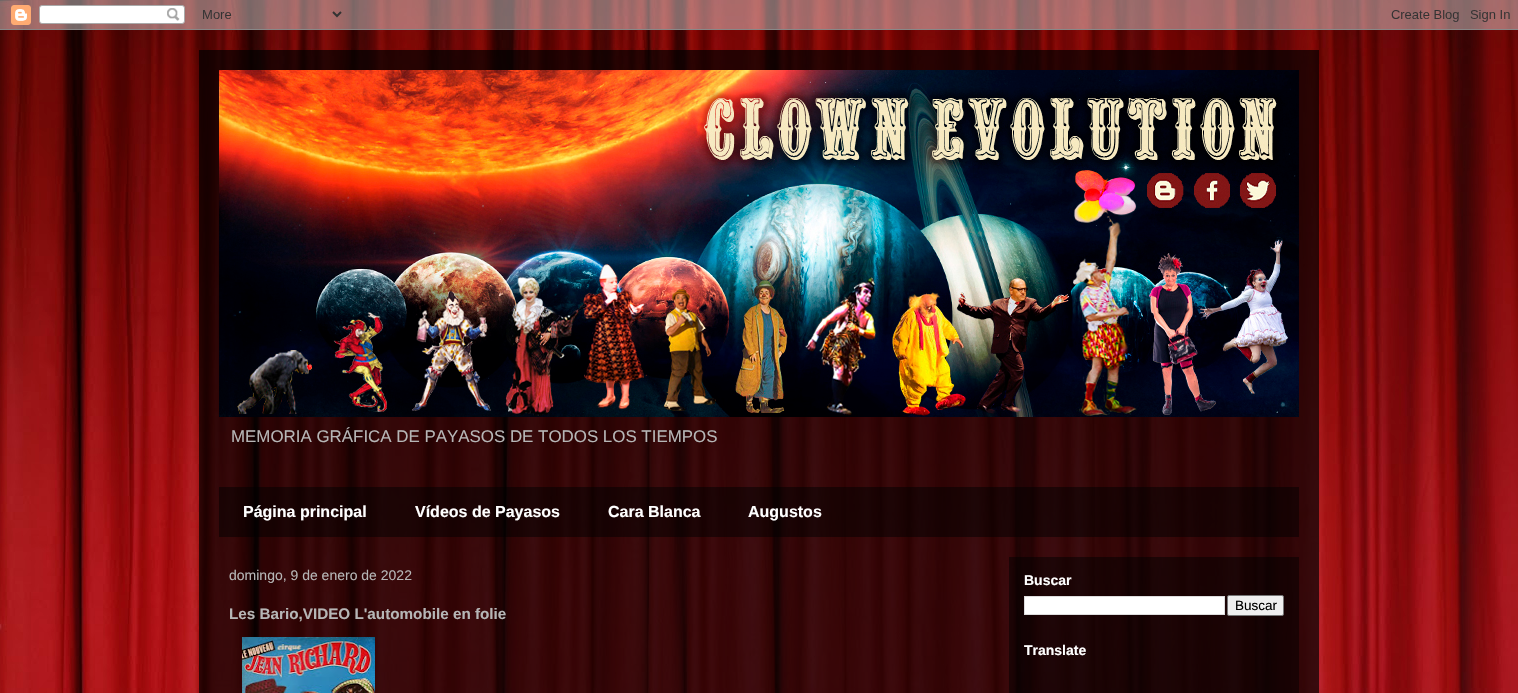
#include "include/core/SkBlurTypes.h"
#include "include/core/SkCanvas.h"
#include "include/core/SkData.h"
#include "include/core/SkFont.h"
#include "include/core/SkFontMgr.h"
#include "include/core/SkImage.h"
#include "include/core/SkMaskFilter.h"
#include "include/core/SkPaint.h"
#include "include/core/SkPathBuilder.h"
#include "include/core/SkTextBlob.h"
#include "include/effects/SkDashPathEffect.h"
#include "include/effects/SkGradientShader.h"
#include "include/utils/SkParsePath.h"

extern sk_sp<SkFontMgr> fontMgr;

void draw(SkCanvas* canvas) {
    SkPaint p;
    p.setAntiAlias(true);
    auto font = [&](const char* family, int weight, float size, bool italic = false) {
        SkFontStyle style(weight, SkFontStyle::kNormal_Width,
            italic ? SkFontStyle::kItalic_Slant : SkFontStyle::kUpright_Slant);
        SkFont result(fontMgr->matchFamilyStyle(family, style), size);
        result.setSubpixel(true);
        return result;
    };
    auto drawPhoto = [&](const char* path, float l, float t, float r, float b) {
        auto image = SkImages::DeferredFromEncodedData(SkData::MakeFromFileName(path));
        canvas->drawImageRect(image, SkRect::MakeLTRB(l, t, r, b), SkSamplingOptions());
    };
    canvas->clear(0xFFFFFFFF);
    drawPhoto("media/1.png", 0, 0, 1518, 693);
    drawPhoto("media/2.png", 0, 0, 1518, 30);
    p.setColor(0xB3000000);
    canvas->drawRect(SkRect::MakeLTRB(199, 50, 1319, 693), p);
    drawPhoto("media/3.png", 219, 70, 1299, 417);
    auto font1 = font("Liberation Sans", 400, 16.9f);
    p.setColor(0xFFB6B6B6);
    canvas->drawString("MEMORIA GRÁFICA DE PAYASOS DE TODOS LOS TIEMPOS", 231, 442, font1, p);
    p.setColor(0x80000000);
    canvas->drawRect(SkRect::MakeLTRB(219, 487, 1299, 537), p);
    auto font2 = font("Liberation Sans", 700, 16);
    p.setColor(0xFFFFFFFF);
    {
        const struct { const char* s; float x, y; } items[] = {
            {"Página principal", 243, 517},
            {"Vídeos de Payasos", 415, 517},
            {"Cara Blanca", 608, 517},
            {"Augustos", 748, 517},
        };
        for (auto [s, x, y] : items) {
            canvas->drawString(s, x, y, font2, p);
        }
    }
    p.setColor(0x80000000);
    canvas->drawRect(SkRect::MakeLTRB(1009, 557, 1299, 693), p);
    auto font3 = font("Liberation Sans", 400, 14);
    p.setColor(0xFFB6B6B6);
    canvas->drawString("domingo, 9 de enero de 2022", 229, 580, font3, p);
    auto font4 = font("Liberation Sans", 700, 15.25f);
    canvas->drawString("Les Bario,VIDEO L'automobile en folie", 229, 619, font4, p);
    drawPhoto("media/4.png", 242, 637, 375, 693);
    auto font5 = font("Liberation Sans", 700, 14);
    p.setColor(0xFFFFFFFF);
    canvas->drawString("Buscar", 1024, 585, font5, p);
    canvas->drawRect(SkRect::MakeLTRB(1024.5f, 596.5f, 1224.5f, 614.5f), p);
    p.setStyle(SkPaint::kStroke_Style);
    p.setStrokeWidth(1);
    p.setColor(0xFFDDDDDD);
    canvas->drawRect(SkRect::MakeLTRB(1024.5f, 596.5f, 1224.5f, 614.5f), p);
    p.setStyle(SkPaint::kFill_Style);
    p.setColor(0xFFEFEFEF);
    canvas->drawRoundRect(SkRect::MakeLTRB(1227.5f, 595.5f, 1283.5f, 615.5f), 1.5f, 1.5f, p);
    p.setStyle(SkPaint::kStroke_Style);
    p.setColor(0xFF767676);
    canvas->drawRoundRect(SkRect::MakeLTRB(1227.5f, 595.5f, 1283.5f, 615.5f), 1.5f, 1.5f, p);
    auto font6 = font("Liberation Sans", 400, 13.5f);
    p.setStyle(SkPaint::kFill_Style);
    p.setColor(0xFF000000);
    canvas->drawString("Buscar", 1235, 610, font6, p);
    p.setColor(0xFFFFFFFF);
    canvas->drawString("Translate", 1024, 655, font5, p);
}
